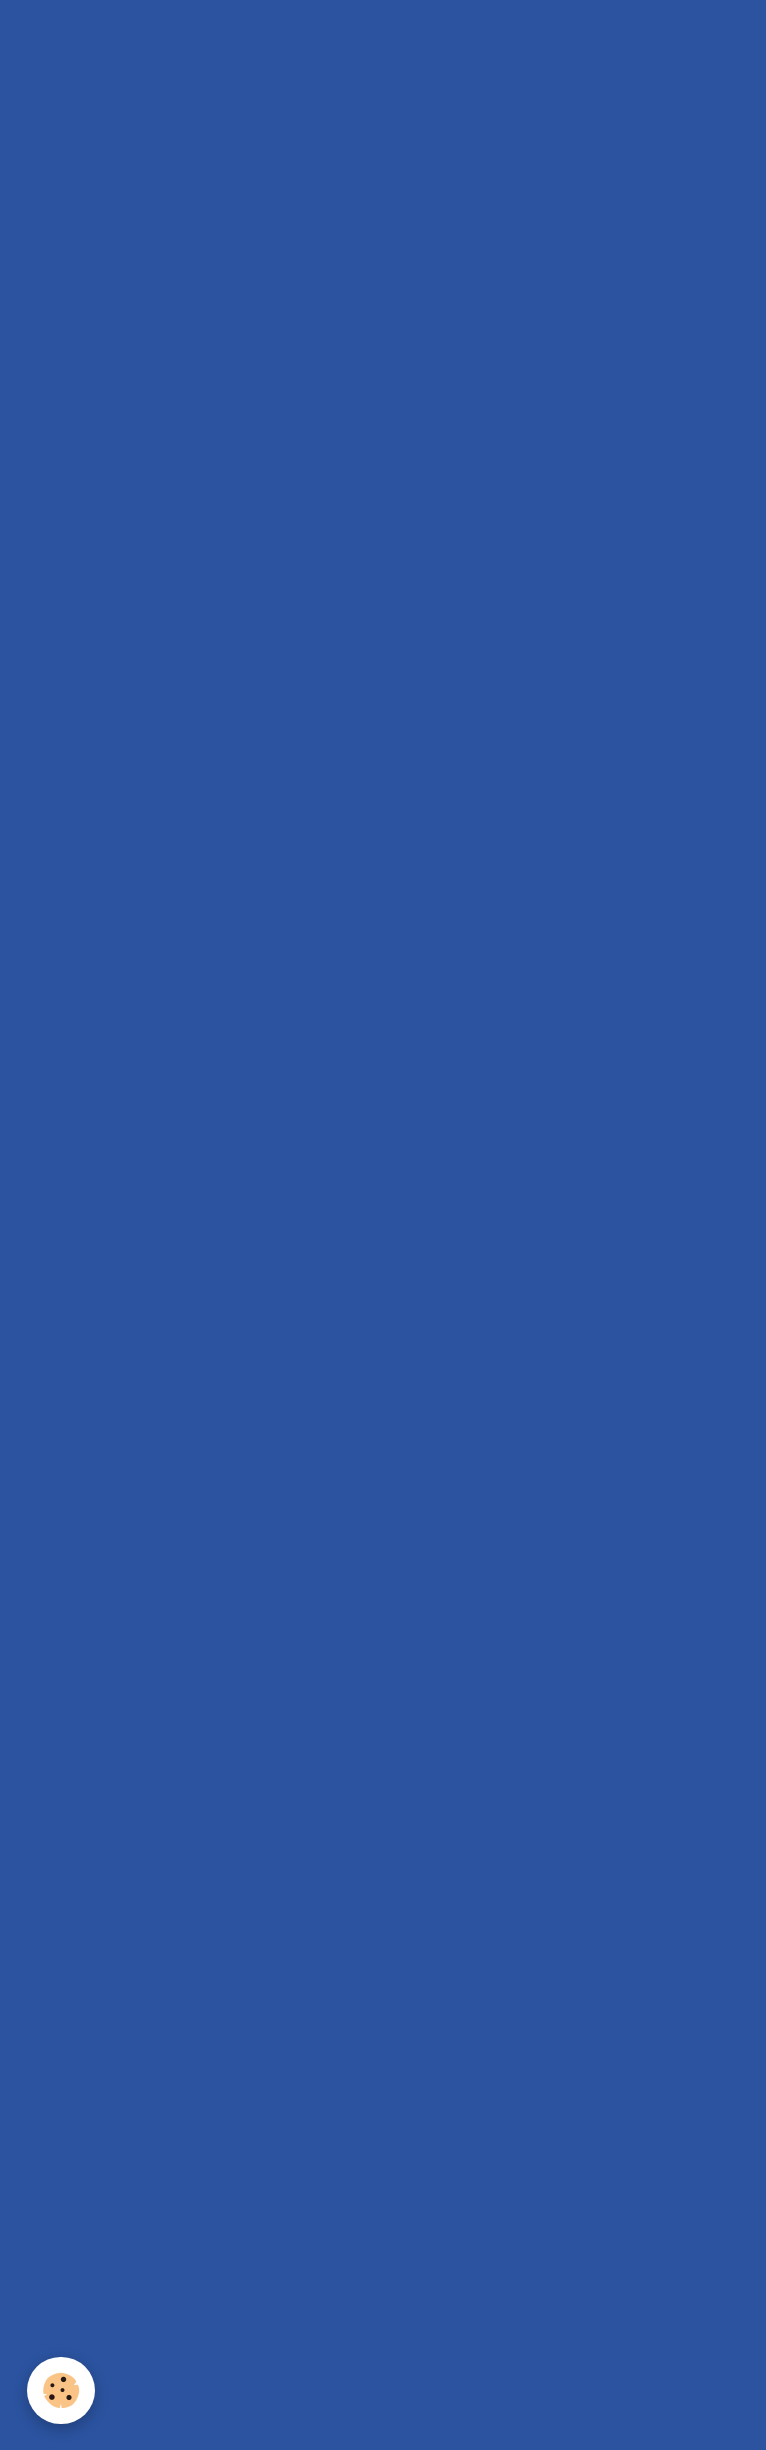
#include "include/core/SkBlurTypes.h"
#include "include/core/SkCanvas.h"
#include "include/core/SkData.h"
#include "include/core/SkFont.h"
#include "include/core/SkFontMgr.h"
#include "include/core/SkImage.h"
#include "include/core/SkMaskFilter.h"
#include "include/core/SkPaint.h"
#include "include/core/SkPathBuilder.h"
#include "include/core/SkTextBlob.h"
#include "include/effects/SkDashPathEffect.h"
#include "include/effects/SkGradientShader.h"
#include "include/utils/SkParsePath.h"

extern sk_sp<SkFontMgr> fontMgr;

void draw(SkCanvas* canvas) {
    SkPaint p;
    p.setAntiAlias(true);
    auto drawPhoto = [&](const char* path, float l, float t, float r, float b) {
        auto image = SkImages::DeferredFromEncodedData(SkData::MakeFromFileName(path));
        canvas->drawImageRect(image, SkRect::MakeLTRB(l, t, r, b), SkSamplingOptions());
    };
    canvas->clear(0xFF2B53A0);
    p.setColor(0x3D000000);
    p.setMaskFilter(SkMaskFilter::MakeBlur(kNormal_SkBlurStyle, 7.5f));
    canvas->drawRoundRect(SkRect::MakeLTRB(27, 2361, 95, 2429), 34, 34, p);
    p.setMaskFilter(nullptr);
    p.setColor(0xFFFFFFFF);
    canvas->drawRoundRect(SkRect::MakeLTRB(27, 2357, 95, 2424), 33.5f, 33.5f, p);
    drawPhoto("media/1.png", 43, 2372, 80, 2408);
}
